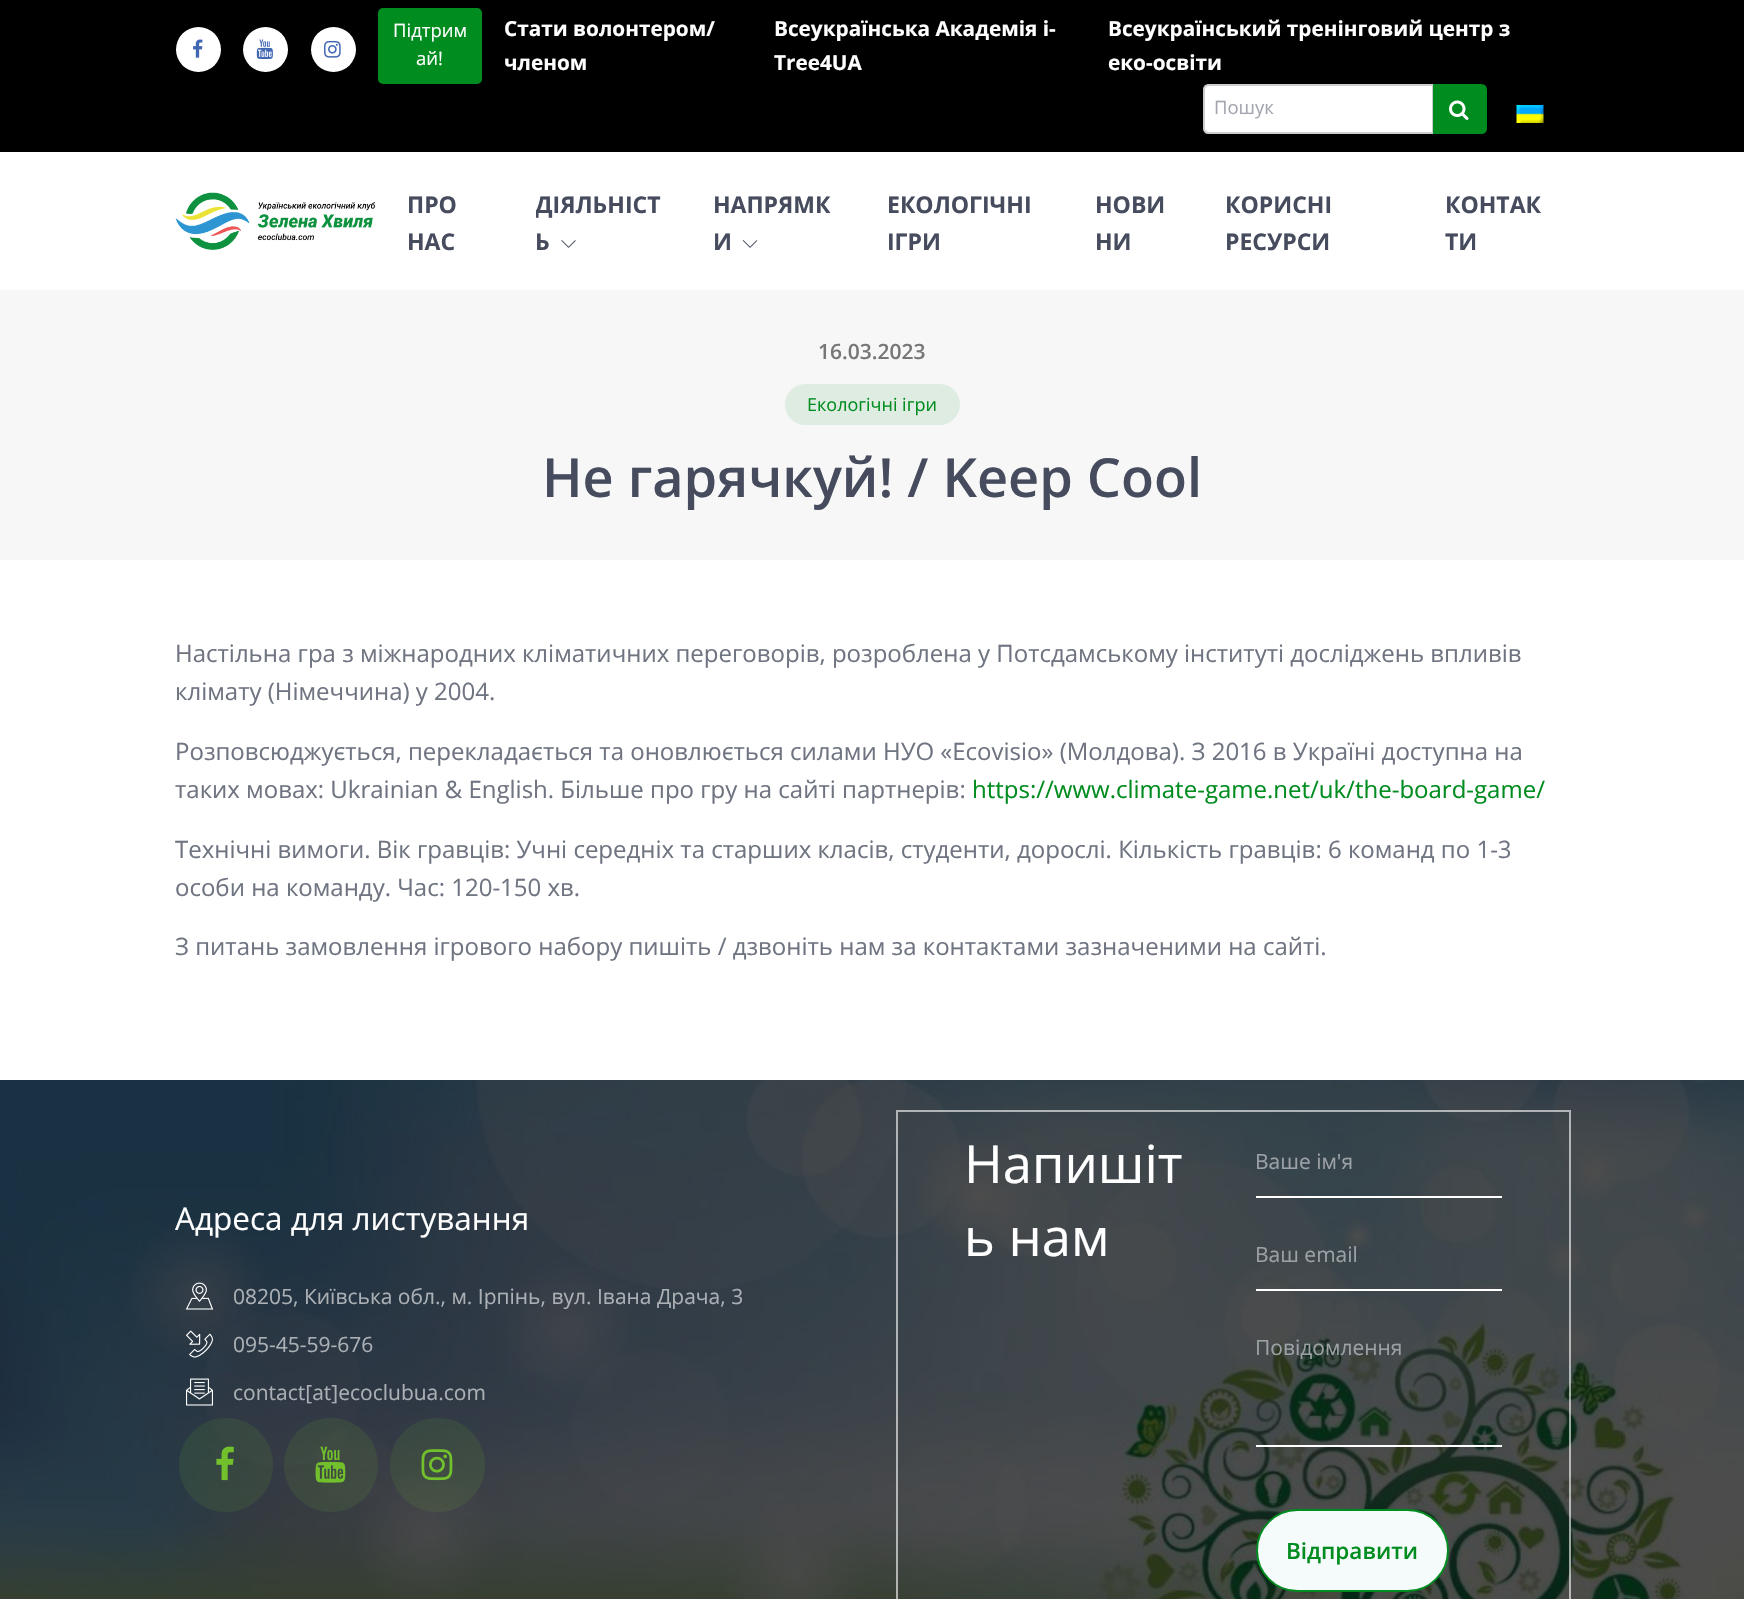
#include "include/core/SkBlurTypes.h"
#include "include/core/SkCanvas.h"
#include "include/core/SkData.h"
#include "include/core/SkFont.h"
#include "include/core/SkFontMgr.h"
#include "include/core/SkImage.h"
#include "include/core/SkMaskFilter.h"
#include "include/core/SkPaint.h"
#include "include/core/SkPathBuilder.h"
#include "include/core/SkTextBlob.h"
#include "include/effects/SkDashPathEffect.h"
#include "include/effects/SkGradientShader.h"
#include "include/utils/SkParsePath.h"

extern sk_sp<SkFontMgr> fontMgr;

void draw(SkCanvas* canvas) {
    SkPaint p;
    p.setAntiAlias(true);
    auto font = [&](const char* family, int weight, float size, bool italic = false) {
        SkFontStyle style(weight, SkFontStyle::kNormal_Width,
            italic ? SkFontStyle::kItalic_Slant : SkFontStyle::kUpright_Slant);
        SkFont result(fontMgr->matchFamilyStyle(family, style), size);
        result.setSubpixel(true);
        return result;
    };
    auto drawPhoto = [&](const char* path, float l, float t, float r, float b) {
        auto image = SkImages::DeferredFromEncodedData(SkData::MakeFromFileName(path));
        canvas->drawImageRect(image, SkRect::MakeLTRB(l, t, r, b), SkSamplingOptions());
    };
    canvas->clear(0xFFFFFFFF);
    p.setColor(0xFF000000);
    canvas->drawRect(SkRect::MakeLTRB(0, 0, 1744, 152), p);
    p.setColor(0xFFFFFFFF);
    canvas->drawCircle(198.5f, 49.5f, 22.5f, p);
    drawPhoto("media/1.png", 193, 39, 203, 58);
    canvas->drawCircle(265.5f, 49.5f, 22.5f, p);
    drawPhoto("media/2.png", 256, 39, 273, 59);
    canvas->drawCircle(333.5f, 49.5f, 22.5f, p);
    drawPhoto("media/3.png", 324, 40, 341, 58);
    p.setColor(0xFF008C1F);
    canvas->drawRoundRect(SkRect::MakeLTRB(378, 8, 482, 84), 5, 5, p);
    auto font1 = font("Open Sans", 400, 18.5f);
    p.setColor(0xFFFFFFFF);
    canvas->drawString("Підтрим", 393, 37, font1, p);
    canvas->drawString("ай!", 416, 65, font1, p);
    auto font2 = font("Open Sans", 700, 20.75f);
    {
        const struct { const char* s; float x, y; } items[] = {
            {"Стати волонтером/", 504, 36},
            {"членом", 504, 70},
            {"Всеукраїнська Академія i-", 774, 36},
            {"Tree4UA", 774, 70},
            {"Всеукраїнський тренінговий центр з", 1108, 36},
            {"еко-освіти", 1108, 70},
        };
        for (auto [s, x, y] : items) {
            canvas->drawString(s, x, y, font2, p);
        }
    }
    canvas->drawPath(SkPathBuilder().moveTo(1208, 85).lineTo(1433, 85).lineTo(1433, 133).lineTo(1208, 133).cubicTo(1206, 133, 1204, 131, 1204, 129).lineTo(1204, 89).cubicTo(1204, 87, 1206, 85, 1208, 85).close().detach(), p);
    p.setStyle(SkPaint::kStroke_Style);
    p.setStrokeWidth(2);
    p.setColor(0xFFCCCCCC);
    canvas->drawPath(SkPathBuilder().moveTo(1208, 85).lineTo(1433, 85).lineTo(1433, 133).lineTo(1208, 133).cubicTo(1206, 133, 1204, 131, 1204, 129).lineTo(1204, 89).cubicTo(1204, 87, 1206, 85, 1208, 85).close().detach(), p);
    p.setStyle(SkPaint::kFill_Style);
    p.setColor(0xFFA3A6AF);
    canvas->drawString("Пошук", 1214, 114, font1, p);
    p.setColor(0xFF008C1F);
    canvas->drawPath(SkPathBuilder().moveTo(1434, 85).lineTo(1481, 85).cubicTo(1484, 85, 1486, 87, 1486, 90).lineTo(1486, 128).cubicTo(1486, 131, 1484, 133, 1481, 133).lineTo(1434, 133).close().detach(), p);
    p.setStyle(SkPaint::kStroke_Style);
    canvas->drawPath(SkPathBuilder().moveTo(1434, 85).lineTo(1481, 85).cubicTo(1484, 85, 1486, 87, 1486, 90).lineTo(1486, 128).cubicTo(1486, 131, 1484, 133, 1481, 133).lineTo(1434, 133).close().detach(), p);
    drawPhoto("media/4.png", 1449, 100, 1469, 120);
    drawPhoto("media/5.png", 1516, 105, 1544, 123);
    drawPhoto("media/6.png", 175, 192, 376, 250);
    auto font3 = font("Open Sans", 700, 23);
    p.setStyle(SkPaint::kFill_Style);
    p.setColor(0xFF464C5E);
    canvas->drawString("ПРО", 407, 213, font3, p);
    canvas->drawString("НАС", 407, 250, font3, p);
    canvas->save();
    canvas->clipRect(SkRect::MakeLTRB(536, 177, 668, 272));
    canvas->drawString("ДІЯЛЬНІСТ", 535, 213, font3, p);
    canvas->restore();
    canvas->drawString("Ь", 535, 250, font3, p);
    drawPhoto("media/7.png", 561, 240, 576, 248);
    canvas->drawString("НАПРЯМК", 713, 213, font3, p);
    canvas->drawString("И", 713, 250, font3, p);
    drawPhoto("media/8.png", 742, 240, 758, 248);
    {
        const struct { const char* s; float x, y; } items[] = {
            {"ЕКОЛОГІЧНІ", 887, 213},
            {"ІГРИ", 887, 250},
            {"НОВИ", 1095, 213},
            {"НИ", 1095, 250},
            {"КОРИСНІ", 1225, 213},
            {"РЕСУРСИ", 1225, 250},
            {"КОНТАК", 1445, 213},
            {"ТИ", 1445, 250},
        };
        for (auto [s, x, y] : items) {
            canvas->drawString(s, x, y, font3, p);
        }
    }
    p.setColor(0xFFF7F7F7);
    canvas->drawRect(SkRect::MakeLTRB(0, 290, 1744, 560), p);
    auto font4 = font("Open Sans", 600, 21);
    p.setColor(0xFF777777);
    canvas->drawString("16.03.2023", 818, 359, font4, p);
    p.setColor(0xFFDEECE1);
    canvas->drawRoundRect(SkRect::MakeLTRB(785, 384, 960, 425), 20.5f, 20.5f, p);
    auto font5 = font("Open Sans", 400, 18);
    p.setColor(0xFF008C1F);
    canvas->drawString("Екологічні ігри", 807, 411, font5, p);
    auto font6 = font("Open Sans", 600, 54);
    p.setColor(0xFF464C5E);
    canvas->drawString("Не гарячкуй! / Keep Cool", 542, 497, font6, p);
    auto font7 = font("Open Sans", 400, 24);
    p.setColor(0xFF6F7481);
    {
        const struct { const char* s; float x, y; } items[] = {
            {"Настільна гра з міжнародних кліматичних переговорів, розроблена у Потсдамському інституті досліджень впливів", 175, 662},
            {"клімату (Німеччина) у 2004.", 175, 700},
            {"Розповсюджується, перекладається та оновлюється силами НУО «Ecovisio» (Молдова). З 2016 в Україні доступна на", 175, 760},
            {"таких мовах: Ukrainian & English. Більше про гру на сайті партнерів:", 175, 798},
        };
        for (auto [s, x, y] : items) {
            canvas->drawString(s, x, y, font7, p);
        }
    }
    p.setColor(0xFF008C1F);
    canvas->drawString("https://www.climate-game.net/uk/the-board-game/", 972, 798, font7, p);
    p.setColor(0xFF6F7481);
    {
        const struct { const char* s; float x, y; } items[] = {
            {"Технічні вимоги. Вік гравців: Учні середніх та старших класів, студенти, дорослі. Кількість гравців: 6 команд по 1-3", 175, 858},
            {"особи на команду. Час: 120-150 хв.", 175, 896},
            {"З питань замовлення ігрового набору пишіть / дзвоніть нам за контактами зазначеними на сайті.", 175, 955},
        };
        for (auto [s, x, y] : items) {
            canvas->drawString(s, x, y, font7, p);
        }
    }
    drawPhoto("media/9.png", 0, 1080, 1744, 1599);
    auto font8 = font("Open Sans", 400, 31.5f);
    p.setColor(0xFFFFFFFF);
    canvas->drawString("Адреса для листування", 175, 1230, font8, p);
    drawPhoto("media/10.png", 185, 1282, 214, 1310);
    auto font9 = font("Open Sans", 400, 21);
    p.setColor(0xFFABB0B5);
    canvas->drawString("08205, Київська обл., м. Ірпінь, вул. Івана Драча, 3", 233, 1304, font9, p);
    drawPhoto("media/11.png", 186, 1330, 213, 1358);
    canvas->drawString("095-45-59-676", 233, 1352, font9, p);
    drawPhoto("media/12.png", 186, 1378, 213, 1406);
    canvas->drawString("contact[at]ecoclubua.com", 233, 1400, font9, p);
    p.setColor(0x1A72C02C);
    canvas->drawCircle(226, 1465, 47, p);
    drawPhoto("media/13.png", 216, 1446, 234, 1481);
    canvas->drawCircle(331, 1465, 47, p);
    drawPhoto("media/14.png", 315, 1446, 346, 1483);
    canvas->drawRoundRect(SkRect::MakeLTRB(390, 1418, 485, 1512), 47, 47, p);
    drawPhoto("media/15.png", 421, 1449, 453, 1481);
    p.setStyle(SkPaint::kStroke_Style);
    p.setColor(0x99FFFFFF);
    canvas->drawRect(SkRect::MakeLTRB(897, 1111, 1570, 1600), p);
    auto font10 = font("Open Sans", 400, 52.5f);
    p.setStyle(SkPaint::kFill_Style);
    p.setColor(0xFFFFFFFF);
    canvas->drawString("Напишіт", 964, 1183, font10, p);
    canvas->drawString("ь нам", 964, 1256, font10, p);
    canvas->drawRect(SkRect::MakeLTRB(1256, 1196, 1502, 1198), p);
    p.setColor(0xFF9BA1A5);
    canvas->drawString("Ваше ім'я", 1255, 1169, font9, p);
    p.setColor(0xFFFFFFFF);
    canvas->drawRect(SkRect::MakeLTRB(1256, 1289, 1502, 1291), p);
    p.setColor(0xFF9BA1A5);
    canvas->drawString("Ваш email", 1255, 1262, font9, p);
    p.setColor(0xFFFFFFFF);
    canvas->drawRect(SkRect::MakeLTRB(1256, 1445, 1502, 1447), p);
    p.setColor(0xFF9BA1A5);
    canvas->drawString("Повідомлення", 1255, 1355, font9, p);
    p.setColor(0xFFF5FAFA);
    canvas->drawRoundRect(SkRect::MakeLTRB(1257, 1510, 1448, 1591), 40.5f, 40.5f, p);
    p.setStyle(SkPaint::kStroke_Style);
    p.setColor(0xFF008C1F);
    canvas->drawRoundRect(SkRect::MakeLTRB(1257, 1510, 1448, 1591), 40.5f, 40.5f, p);
    auto font11 = font("Open Sans", 600, 22.5f);
    p.setStyle(SkPaint::kFill_Style);
    canvas->drawString("Відправити", 1286, 1559, font11, p);
}
